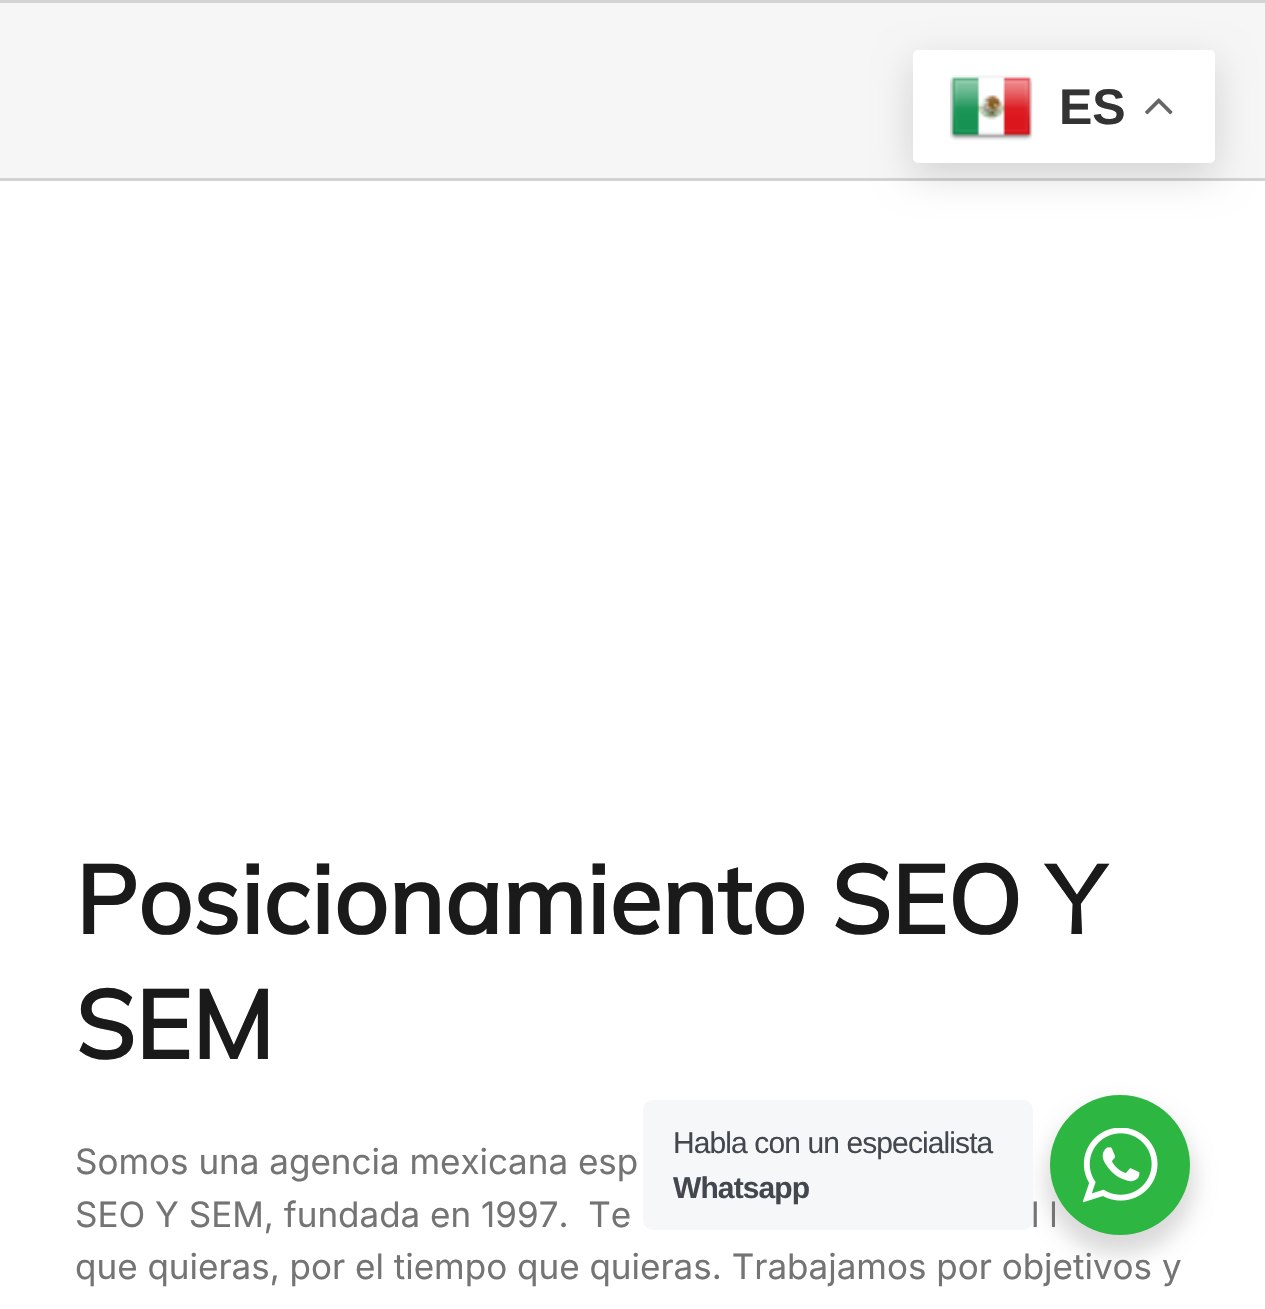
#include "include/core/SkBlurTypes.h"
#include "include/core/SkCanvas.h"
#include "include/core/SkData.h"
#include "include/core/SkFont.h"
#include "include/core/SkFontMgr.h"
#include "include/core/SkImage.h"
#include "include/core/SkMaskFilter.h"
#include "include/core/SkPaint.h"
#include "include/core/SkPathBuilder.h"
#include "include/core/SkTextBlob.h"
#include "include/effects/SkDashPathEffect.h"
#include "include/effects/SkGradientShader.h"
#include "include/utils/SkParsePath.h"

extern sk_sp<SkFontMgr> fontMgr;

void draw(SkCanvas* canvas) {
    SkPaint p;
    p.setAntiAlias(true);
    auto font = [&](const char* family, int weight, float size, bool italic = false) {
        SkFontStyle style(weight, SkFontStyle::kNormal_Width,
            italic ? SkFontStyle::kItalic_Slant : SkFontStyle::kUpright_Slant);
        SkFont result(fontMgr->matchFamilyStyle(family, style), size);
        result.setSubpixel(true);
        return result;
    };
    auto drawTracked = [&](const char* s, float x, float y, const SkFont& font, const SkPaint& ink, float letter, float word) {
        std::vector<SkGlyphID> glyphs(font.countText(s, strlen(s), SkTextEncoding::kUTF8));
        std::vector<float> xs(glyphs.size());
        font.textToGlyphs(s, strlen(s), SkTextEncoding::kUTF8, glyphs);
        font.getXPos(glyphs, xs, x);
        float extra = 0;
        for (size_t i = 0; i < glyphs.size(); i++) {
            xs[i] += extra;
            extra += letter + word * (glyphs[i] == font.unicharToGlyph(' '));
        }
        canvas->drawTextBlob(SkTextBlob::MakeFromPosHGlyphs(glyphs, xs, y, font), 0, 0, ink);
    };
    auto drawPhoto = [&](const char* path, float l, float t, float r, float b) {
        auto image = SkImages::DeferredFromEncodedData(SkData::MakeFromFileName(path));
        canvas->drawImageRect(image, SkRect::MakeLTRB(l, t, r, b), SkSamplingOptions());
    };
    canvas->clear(0xFFFFFFFF);
    p.setColor(0xFFF6F6F6);
    canvas->drawRect(SkRect::MakeLTRB(0, 3, 1265, 178), p);
    p.setColor(0xFFD2D3D4);
    canvas->drawRect(SkRect::MakeLTRB(0, 178, 1265, 181), p);
    p.setColor(0x26000000);
    p.setMaskFilter(SkMaskFilter::MakeBlur(kNormal_SkBlurStyle, 19));
    canvas->drawRoundRect(SkRect::MakeLTRB(913, 63, 1215, 175), 5, 5, p);
    p.setMaskFilter(nullptr);
    p.setColor(0xFFFFFFFF);
    canvas->drawRoundRect(SkRect::MakeLTRB(913, 50, 1215, 163), 5, 5, p);
    drawPhoto("media/1.png", 950, 75, 1033, 141);
    auto font1 = font("Liberation Sans", 700, 50);
    p.setColor(0xFF333333);
    canvas->drawString("ES", 1059, 124, font1, p);
    drawPhoto("media/2.png", 1145, 98, 1173, 115);
    p.setColor(0x24000000);
    p.setMaskFilter(SkMaskFilter::MakeBlur(kNormal_SkBlurStyle, 10));
    canvas->drawRoundRect(SkRect::MakeLTRB(1045, 1105, 1195, 1255), 75, 75, p);
    p.setMaskFilter(nullptr);
    p.setColor(0xFFF5F7F9);
    canvas->drawRoundRect(SkRect::MakeLTRB(643, 1100, 1033, 1230), 10, 10, p);
    auto font2 = font("Liberation Sans", 400, 30);
    p.setColor(0xFF43474E);
    drawTracked("Habla con un especialista", 673, 1153, font2, p, -0.9f, 0);
    auto font3 = font("Liberation Sans", 700, 30);
    drawTracked("Whatsapp", 673, 1198, font3, p, -0.9f, 0);
    auto font4 = font("Inter", 400, 35);
    p.setColor(0xFF747474);
    canvas->drawString("l l", 1031, 1227, font4, p);
    p.setColor(0xFF2DB742);
    canvas->drawCircle(1120, 1165, 70, p);
    drawPhoto("media/3.png", 1083, 1128, 1158, 1203);
    p.setColor(0xFFD2D3D4);
    canvas->drawRect(SkRect::MakeLTRB(0, 0, 1265, 3), p);
    auto font5 = font("Mulish", 700, 96);
    p.setColor(0xFF1A1A1A);
    canvas->drawString("Posicionamiento SEO Y", 75, 934, font5, p);
    canvas->drawString("SEM", 75, 1059, font5, p);
    p.setColor(0xFF747474);
    {
        const struct { const char* s; float x, y; } items[] = {
            {"Somos una agencia mexicana esp", 75, 1174},
            {"SEO Y SEM, fundada en 1997.  Te", 75, 1227},
            {"que quieras, por el tiempo que quieras. Trabajamos por objetivos y", 75, 1279},
        };
        for (auto [s, x, y] : items) {
            canvas->drawString(s, x, y, font4, p);
        }
    }
}
